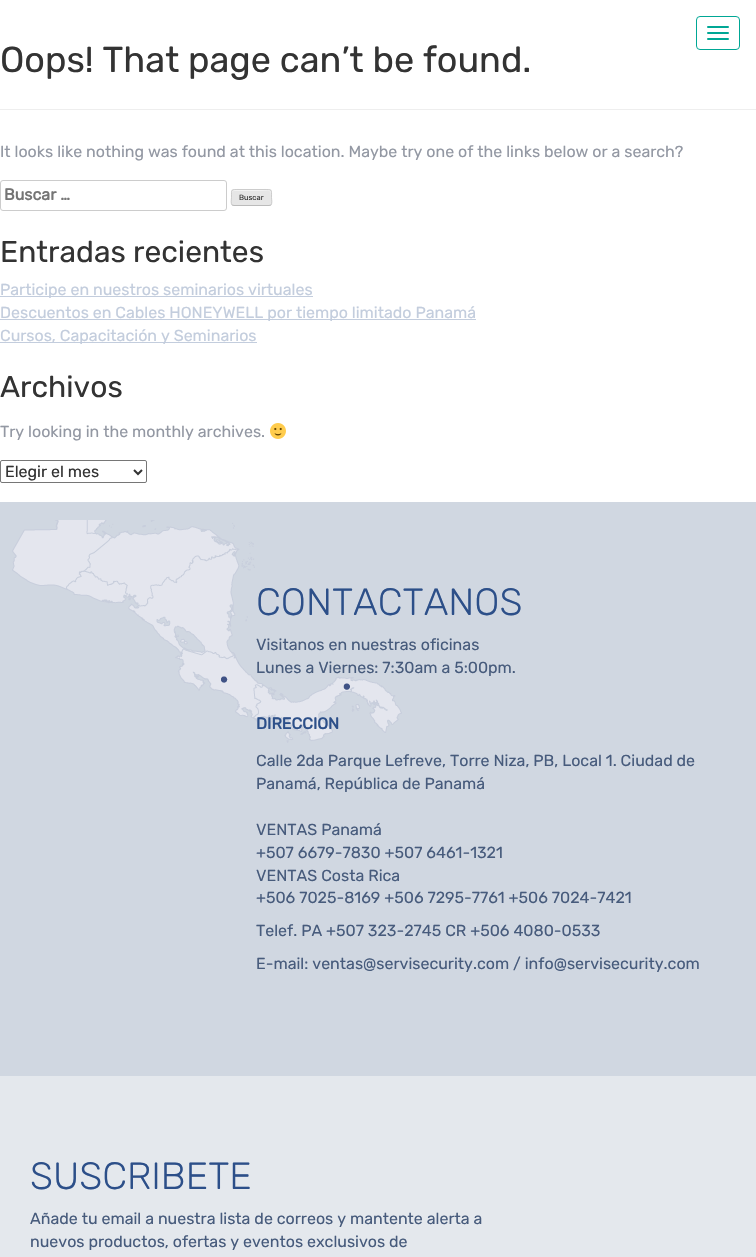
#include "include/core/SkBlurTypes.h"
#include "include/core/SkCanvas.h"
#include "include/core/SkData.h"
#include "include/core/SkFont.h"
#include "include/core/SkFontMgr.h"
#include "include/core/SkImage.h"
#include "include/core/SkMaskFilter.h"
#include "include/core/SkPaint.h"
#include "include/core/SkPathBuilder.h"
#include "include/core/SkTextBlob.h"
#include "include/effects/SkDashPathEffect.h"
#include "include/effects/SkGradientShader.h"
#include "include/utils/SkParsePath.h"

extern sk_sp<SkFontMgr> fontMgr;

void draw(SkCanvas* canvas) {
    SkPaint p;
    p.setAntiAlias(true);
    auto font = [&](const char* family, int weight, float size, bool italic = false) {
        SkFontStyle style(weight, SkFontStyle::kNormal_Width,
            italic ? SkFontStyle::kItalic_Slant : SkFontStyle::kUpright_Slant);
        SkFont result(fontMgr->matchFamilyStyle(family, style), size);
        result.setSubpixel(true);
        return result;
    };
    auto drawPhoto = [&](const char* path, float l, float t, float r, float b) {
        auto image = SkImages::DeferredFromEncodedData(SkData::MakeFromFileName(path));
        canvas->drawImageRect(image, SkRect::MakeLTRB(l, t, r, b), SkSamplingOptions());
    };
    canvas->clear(0xFFFFFFFF);
    p.setStyle(SkPaint::kStroke_Style);
    p.setStrokeWidth(1);
    p.setColor(0xFF00A795);
    canvas->drawRoundRect(SkRect::MakeLTRB(696.5f, 16.5f, 739.5f, 49.5f), 3.5f, 3.5f, p);
    p.setStyle(SkPaint::kFill_Style);
    canvas->drawRoundRect(SkRect::MakeLTRB(707, 26, 729, 28), 1, 1, p);
    canvas->drawRoundRect(SkRect::MakeLTRB(707, 32, 729, 34), 1, 1, p);
    canvas->drawRoundRect(SkRect::MakeLTRB(707, 38, 729, 40), 1, 1, p);
    p.setColor(0xFFEEEEEE);
    canvas->drawRect(SkRect::MakeLTRB(0, 109, 756, 110), p);
    auto font1 = font("Rubik", 400, 36);
    p.setColor(0xFF333333);
    canvas->drawString("Oops! That page can’t be found.", 0, 72, font1, p);
    auto font2 = font("Rubik", 400, 16);
    p.setColor(0xFF9398A3);
    canvas->drawString("It looks like nothing was found at this location. Maybe try one of the links below or a search?", 0, 157, font2, p);
    p.setStyle(SkPaint::kStroke_Style);
    p.setColor(0xFFCCCCCC);
    canvas->drawRoundRect(SkRect::MakeLTRB(0.5f, 180.5f, 226.5f, 210.5f), 2.5f, 2.5f, p);
    auto font3 = font("Rubik", 700, 16);
    p.setStyle(SkPaint::kFill_Style);
    p.setColor(0xFF757575);
    canvas->drawString("Buscar …", 4, 200, font3, p);
    p.setColor(0xFFE6E6E6);
    canvas->drawRoundRect(SkRect::MakeLTRB(231, 189, 272, 206), 3, 3, p);
    p.setColor(0xFFF3F3F3);
    canvas->drawPath(SkPathBuilder().moveTo(234, 191).lineTo(258, 191).lineTo(268, 190.5f).lineTo(270, 191.5f).cubicTo(271.5f, 193, 271.5f, 201.5f, 270.5f, 204.5f).cubicTo(271.5f, 203, 271, 199, 271, 197.5f).cubicTo(271, 195.5f, 272, 190, 269, 190).lineTo(240, 190).cubicTo(235.5f, 190, 232, 188.5f, 232, 193).cubicTo(232, 192, 233, 191, 234, 191).close().detach(), p);
    p.setStyle(SkPaint::kStroke_Style);
    p.setColor(0xFFBBBBBB);
    canvas->drawPath(SkPathBuilder().moveTo(271, 205).lineTo(269, 205.5f).lineTo(234, 205.5f).lineTo(232, 205).detach(), p);
    p.setColor(0xFFCCCCCC);
    canvas->drawPath(SkPathBuilder().moveTo(232, 205).cubicTo(230.5f, 203, 231.5f, 199.5f, 231.5f, 197.5f).cubicTo(231.5f, 189, 230.5f, 189.5f, 240, 189.5f).lineTo(263, 189.5f).cubicTo(272.5f, 189.5f, 271.5f, 189, 271.5f, 197.5f).cubicTo(271.5f, 199.5f, 272.5f, 203, 271, 205).detach(), p);
    auto font4 = font("Rubik", 400, 7.5f);
    p.setStyle(SkPaint::kFill_Style);
    p.setColor(0xFF333333);
    canvas->drawString("Buscar", 239, 200, font4, p);
    auto font5 = font("Rubik", 400, 30);
    canvas->drawString("Entradas recientes", 0, 262, font5, p);
    p.setColor(0xFFC3CDDD);
    canvas->drawRect(SkRect::MakeLTRB(0, 296, 313, 297), p);
    canvas->drawString("Participe en nuestros seminarios virtuales", 0, 295, font2, p);
    canvas->drawRect(SkRect::MakeLTRB(0, 319, 476, 320), p);
    canvas->drawString("Descuentos en Cables HONEYWELL por tiempo limitado Panamá", 0, 318, font2, p);
    canvas->drawRect(SkRect::MakeLTRB(0, 342, 257, 343), p);
    canvas->drawString("Cursos, Capacitación y Seminarios", 0, 341, font2, p);
    p.setColor(0xFF333333);
    canvas->drawString("Archivos", 0, 397, font5, p);
    p.setColor(0xFF9398A3);
    canvas->drawString("Try looking in the monthly archives.", 0, 437, font2, p);
    drawPhoto("media/1.png", 270, 423, 286, 439);
    p.setStyle(SkPaint::kStroke_Style);
    p.setColor(0xFF767676);
    canvas->drawRoundRect(SkRect::MakeLTRB(0.5f, 460.5f, 146.5f, 482.5f), 1.5f, 1.5f, p);
    p.setStrokeWidth(2);
    p.setColor(0xFF333333);
    canvas->drawPath(SkPathBuilder().moveTo(134, 470).lineTo(138, 474).lineTo(142, 470).detach(), p);
    p.setStyle(SkPaint::kFill_Style);
    canvas->drawString("Elegir el mes", 5, 477, font2, p);
    p.setColor(0xFFD0D7E1);
    canvas->drawRect(SkRect::MakeLTRB(0, 502, 756, 1076), p);
    drawPhoto("media/2.png", 12, 520, 402, 743);
    auto font6 = font("Rubik", 300, 38);
    p.setColor(0xFF2C4F89);
    canvas->drawString("CONTACTANOS", 256, 615, font6, p);
    p.setColor(0xFF475B7C);
    canvas->drawString("Visitanos en nuestras oficinas", 256, 650, font2, p);
    canvas->drawString("Lunes a Viernes: 7:30am a 5:00pm.", 256, 673, font2, p);
    p.setColor(0xFF2C4F89);
    canvas->drawString("DIRECCION", 256, 729, font3, p);
    p.setColor(0xFF475B7C);
    {
        const struct { const char* s; float x, y; } items[] = {
            {"Calle 2da Parque Lefreve, Torre Niza, PB, Local 1. Ciudad de", 256, 766},
            {"Panamá, República de Panamá", 256, 789},
            {"VENTAS Panamá", 256, 835},
            {"+507 6679-7830 +507 6461-1321", 256, 858},
            {"VENTAS Costa Rica", 256, 881},
            {"+506 7025-8169 +506 7295-7761 +506 7024-7421", 256, 903},
            {"Telef. PA +507 323-2745 CR +506 4080-0533", 256, 936},
            {"E-mail: ventas@servisecurity.com / info@servisecurity.com", 256, 969},
        };
        for (auto [s, x, y] : items) {
            canvas->drawString(s, x, y, font2, p);
        }
    }
    p.setColor(0xFFE4E8ED);
    canvas->drawRect(SkRect::MakeLTRB(0, 1076, 756, 1257), p);
    p.setColor(0xFF2C4F89);
    canvas->drawString("SUSCRIBETE", 30, 1189, font6, p);
    p.setColor(0xFF475B7C);
    canvas->drawString("Añade tu email a nuestra lista de correos y mantente alerta a", 30, 1224, font2, p);
    canvas->drawString("nuevos productos, ofertas y eventos exclusivos de", 30, 1247, font2, p);
}
